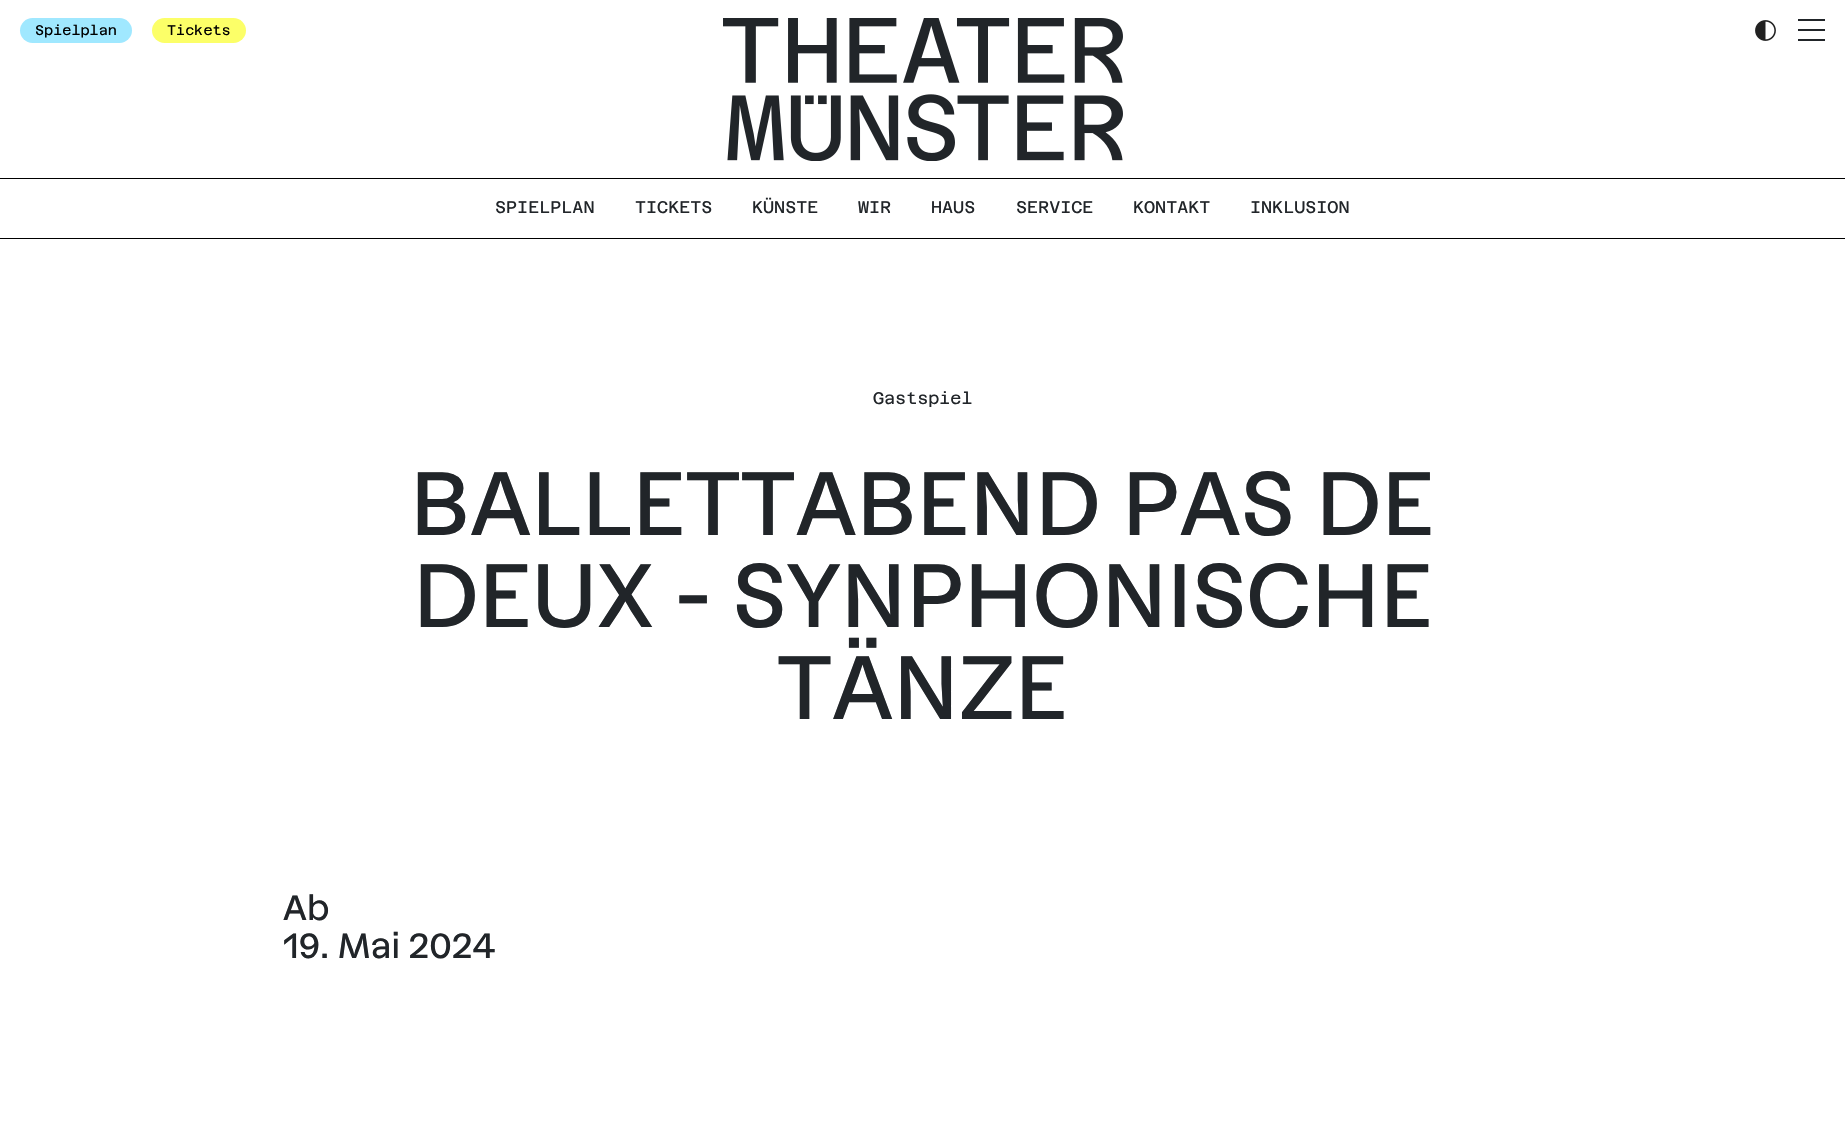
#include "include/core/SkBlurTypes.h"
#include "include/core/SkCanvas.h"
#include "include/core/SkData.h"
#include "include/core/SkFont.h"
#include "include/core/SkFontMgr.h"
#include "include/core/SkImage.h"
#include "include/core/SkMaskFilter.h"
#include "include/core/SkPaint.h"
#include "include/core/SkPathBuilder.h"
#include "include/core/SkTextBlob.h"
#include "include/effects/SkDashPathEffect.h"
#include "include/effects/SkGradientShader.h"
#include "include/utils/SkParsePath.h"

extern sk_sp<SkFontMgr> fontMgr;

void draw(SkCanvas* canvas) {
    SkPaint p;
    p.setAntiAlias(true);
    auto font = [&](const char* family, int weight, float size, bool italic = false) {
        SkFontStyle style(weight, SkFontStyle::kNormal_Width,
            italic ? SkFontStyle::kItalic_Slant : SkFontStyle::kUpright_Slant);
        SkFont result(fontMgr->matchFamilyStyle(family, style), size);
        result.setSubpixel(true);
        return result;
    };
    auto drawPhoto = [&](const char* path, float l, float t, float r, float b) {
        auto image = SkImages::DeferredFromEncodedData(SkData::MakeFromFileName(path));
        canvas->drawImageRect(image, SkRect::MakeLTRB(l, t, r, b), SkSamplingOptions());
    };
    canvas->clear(0xFFFFFFFF);
    p.setColor(0xFF000000);
    canvas->drawRect(SkRect::MakeLTRB(0, 238, 1845, 239), p);
    p.setColor(0xFFA0E8FF);
    canvas->drawRoundRect(SkRect::MakeLTRB(20, 18, 132, 43), 12.5f, 12.5f, p);
    auto font1 = font("Azeret Mono", 400, 14);
    p.setColor(0xFF000000);
    canvas->drawString("Spielplan", 35, 35, font1, p);
    p.setColor(0xFFFCFF68);
    canvas->drawRoundRect(SkRect::MakeLTRB(152, 18, 246, 43), 12.5f, 12.5f, p);
    p.setColor(0xFF000000);
    canvas->drawString("Tickets", 167, 35, font1, p);
    drawPhoto("media/1.png", 723, 18, 1123, 161);
    drawPhoto("media/2.png", 1755, 20, 1776, 41);
    {
        const struct { float l, t, r, b; SkColor color; } items[] = {
            {1798, 19, 1825, 21, 0xFF212529},
            {1798, 29, 1825, 31, 0xFF212529},
            {1798, 39, 1825, 41, 0xFF212529},
            {0, 178, 1845, 179, 0xFF000000},
        };
        for (auto [l, t, r, b, color] : items) {
            p.setColor(color);
            canvas->drawRect(SkRect::MakeLTRB(l, t, r, b), p);
        }
    }
    auto font2 = font("Azeret Mono", 400, 17);
    p.setColor(0xFF212529);
    {
        const struct { const char* s; float x, y; } items[] = {
            {"SPIELPLAN", 495, 213},
            {"TICKETS", 635, 213},
            {"KÜNSTE", 752, 213},
            {"WIR", 858, 213},
            {"HAUS", 931, 213},
            {"SERVICE", 1016, 213},
            {"KONTAKT", 1133, 213},
            {"INKLUSION", 1250, 213},
            {"Gastspiel", 873, 404},
        };
        for (auto [s, x, y] : items) {
            canvas->drawString(s, x, y, font2, p);
        }
    }
    auto font3 = font("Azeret", 400, 90);
    {
        const struct { const char* s; float x, y; } items[] = {
            {"BALLETTABEND PAS DE", 410, 535},
            {"DEUX - SYNPHONISCHE", 413, 627},
            {"TÄNZE", 777, 719},
        };
        for (auto [s, x, y] : items) {
            canvas->drawString(s, x, y, font3, p);
        }
    }
    auto font4 = font("Azeret", 400, 35);
    canvas->drawString("Ab", 283, 920, font4, p);
    canvas->drawString("19. Mai 2024", 283, 958, font4, p);
}
